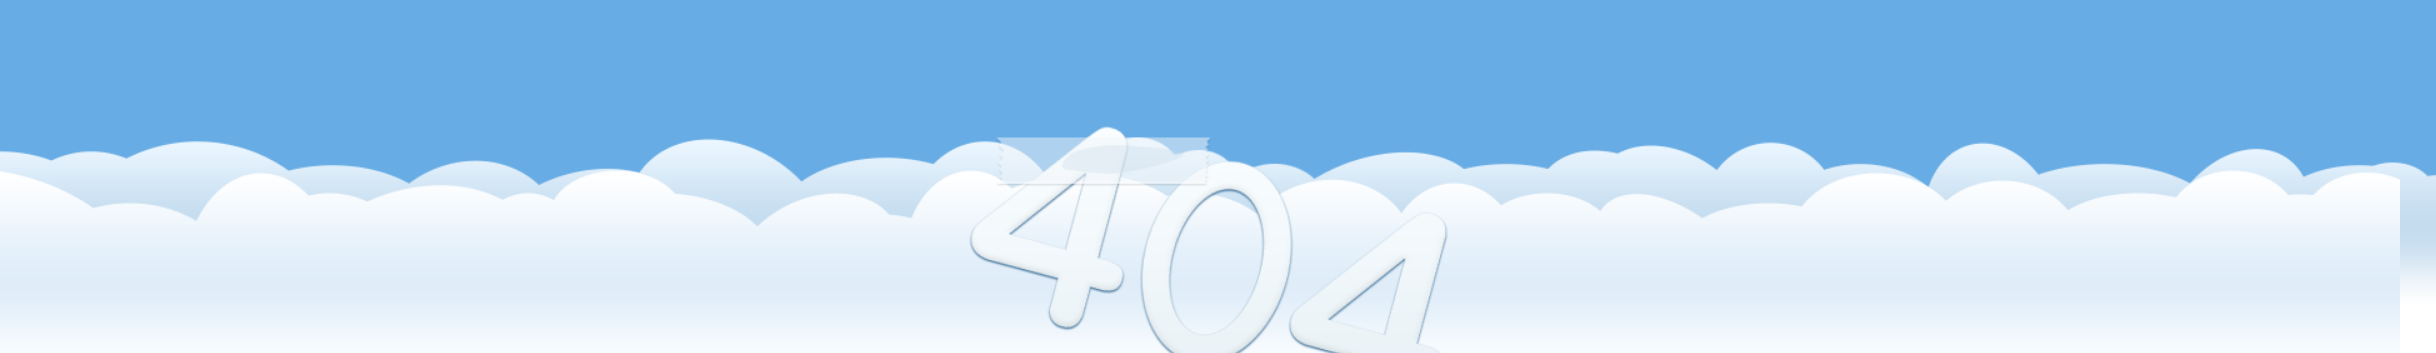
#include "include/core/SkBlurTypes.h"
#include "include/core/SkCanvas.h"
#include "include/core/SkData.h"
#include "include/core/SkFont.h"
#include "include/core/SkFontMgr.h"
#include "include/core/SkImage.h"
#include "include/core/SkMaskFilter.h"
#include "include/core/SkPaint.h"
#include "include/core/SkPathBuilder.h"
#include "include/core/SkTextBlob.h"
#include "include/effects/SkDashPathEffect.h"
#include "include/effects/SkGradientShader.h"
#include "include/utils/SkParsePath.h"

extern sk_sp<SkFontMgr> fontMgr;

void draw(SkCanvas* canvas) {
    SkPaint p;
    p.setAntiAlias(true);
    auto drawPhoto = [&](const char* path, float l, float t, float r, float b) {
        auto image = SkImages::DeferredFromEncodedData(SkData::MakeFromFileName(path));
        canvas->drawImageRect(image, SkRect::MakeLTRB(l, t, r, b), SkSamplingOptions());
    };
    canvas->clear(0xFF67ACE4);
    drawPhoto("media/2.png", 0, 137, 2436, 353);
    drawPhoto("media/3.png", 0, 170, 2400, 353);
    drawPhoto("media/1.png", 969, 126, 1448, 353);
}
